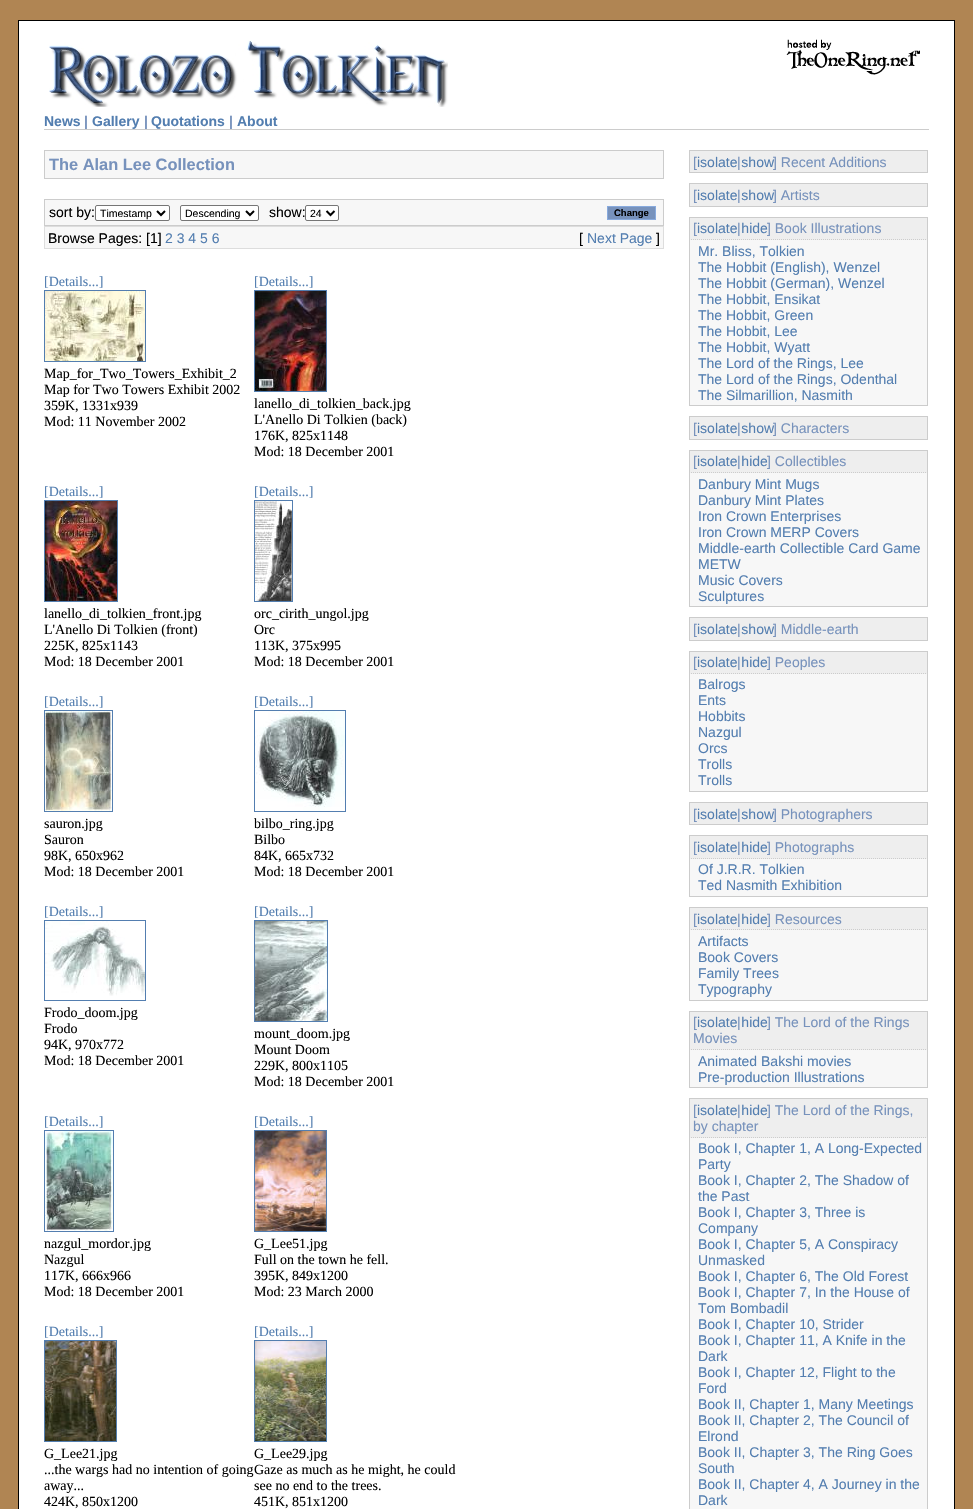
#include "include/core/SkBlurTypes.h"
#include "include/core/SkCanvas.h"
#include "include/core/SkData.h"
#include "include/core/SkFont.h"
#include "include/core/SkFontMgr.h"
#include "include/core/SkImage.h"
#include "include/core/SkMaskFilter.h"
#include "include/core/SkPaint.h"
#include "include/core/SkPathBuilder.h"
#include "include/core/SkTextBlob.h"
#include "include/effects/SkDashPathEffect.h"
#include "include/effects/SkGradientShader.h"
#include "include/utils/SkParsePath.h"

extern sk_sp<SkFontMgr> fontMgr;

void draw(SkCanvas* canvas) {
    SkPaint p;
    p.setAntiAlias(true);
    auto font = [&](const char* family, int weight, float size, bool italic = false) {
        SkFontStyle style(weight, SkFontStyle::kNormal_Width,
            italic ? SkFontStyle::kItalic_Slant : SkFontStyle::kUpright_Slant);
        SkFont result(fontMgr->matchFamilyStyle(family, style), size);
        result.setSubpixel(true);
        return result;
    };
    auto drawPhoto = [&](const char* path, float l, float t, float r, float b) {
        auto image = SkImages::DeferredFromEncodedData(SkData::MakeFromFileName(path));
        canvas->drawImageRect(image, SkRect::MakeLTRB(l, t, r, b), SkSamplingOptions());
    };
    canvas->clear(0xFFB08553);
    p.setColor(0xFFFFFFFF);
    canvas->drawRect(SkRect::MakeLTRB(18.5f, 20.5f, 954.5f, 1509.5f), p);
    p.setStyle(SkPaint::kStroke_Style);
    p.setStrokeWidth(1);
    p.setColor(0xFF000000);
    canvas->drawRect(SkRect::MakeLTRB(18.5f, 20.5f, 954.5f, 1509.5f), p);
    drawPhoto("media/1.png", 49, 40, 448, 107);
    drawPhoto("media/2.png", 786, 39, 920, 75);
    p.setStyle(SkPaint::kFill_Style);
    p.setColor(0xFFCCCCCC);
    canvas->drawRect(SkRect::MakeLTRB(44, 129, 929, 130), p);
    auto font1 = font("Liberation Sans", 700, 14);
    p.setColor(0xFF537EB0);
    canvas->drawString("News", 44, 126, font1, p);
    p.setColor(0xFF7792BC);
    canvas->drawString("|", 84, 126, font1, p);
    p.setColor(0xFF537EB0);
    canvas->drawString("Gallery", 92, 126, font1, p);
    p.setColor(0xFF7792BC);
    canvas->drawString("|", 144, 126, font1, p);
    p.setColor(0xFF537EB0);
    canvas->drawString("Quotations", 151, 126, font1, p);
    p.setColor(0xFF7792BC);
    canvas->drawString("|", 229, 126, font1, p);
    p.setColor(0xFF537EB0);
    canvas->drawString("About", 237, 126, font1, p);
    p.setColor(0xFFF7F7F7);
    canvas->drawRect(SkRect::MakeLTRB(44.5f, 150.5f, 663.5f, 178.5f), p);
    p.setStyle(SkPaint::kStroke_Style);
    p.setColor(0xFFCCCCCC);
    canvas->drawRect(SkRect::MakeLTRB(44.5f, 150.5f, 663.5f, 178.5f), p);
    auto font2 = font("Liberation Sans", 700, 16.4f);
    p.setStyle(SkPaint::kFill_Style);
    p.setColor(0xFF7792BC);
    canvas->drawString("The Alan Lee Collection", 49, 170, font2, p);
    p.setColor(0xFFF7F7F7);
    canvas->drawRect(SkRect::MakeLTRB(44.5f, 199.5f, 663.5f, 225.5f), p);
    p.setStyle(SkPaint::kStroke_Style);
    p.setColor(0xFFCCCCCC);
    canvas->drawRect(SkRect::MakeLTRB(44.5f, 199.5f, 663.5f, 225.5f), p);
    auto font3 = font("Liberation Sans", 400, 14);
    p.setStyle(SkPaint::kFill_Style);
    p.setColor(0xFF000000);
    canvas->drawString("sort by:", 49, 217, font3, p);
    p.setColor(0xFFFFFFFF);
    canvas->drawRoundRect(SkRect::MakeLTRB(95.5f, 205.5f, 169.5f, 220.5f), 1.5f, 1.5f, p);
    p.setStyle(SkPaint::kStroke_Style);
    p.setColor(0xFF767676);
    canvas->drawRoundRect(SkRect::MakeLTRB(95.5f, 205.5f, 169.5f, 220.5f), 1.5f, 1.5f, p);
    p.setStrokeWidth(2);
    p.setColor(0xFF000000);
    canvas->drawPath(SkPathBuilder().moveTo(157, 211).lineTo(161, 215).lineTo(165, 211).detach(), p);
    auto font4 = font("Liberation Sans", 400, 10.5f);
    p.setStyle(SkPaint::kFill_Style);
    canvas->drawString("Timestamp", 100, 217, font4, p);
    p.setColor(0xFFFFFFFF);
    canvas->drawRoundRect(SkRect::MakeLTRB(180.5f, 205.5f, 258.5f, 220.5f), 1.5f, 1.5f, p);
    p.setStyle(SkPaint::kStroke_Style);
    p.setStrokeWidth(1);
    p.setColor(0xFF767676);
    canvas->drawRoundRect(SkRect::MakeLTRB(180.5f, 205.5f, 258.5f, 220.5f), 1.5f, 1.5f, p);
    p.setStrokeWidth(2);
    p.setColor(0xFF000000);
    canvas->drawPath(SkPathBuilder().moveTo(246, 211).lineTo(250, 215).lineTo(254, 211).detach(), p);
    p.setStyle(SkPaint::kFill_Style);
    canvas->drawString("Descending", 185, 217, font4, p);
    canvas->drawString("show:", 269, 217, font3, p);
    p.setColor(0xFFFFFFFF);
    canvas->drawRoundRect(SkRect::MakeLTRB(305.5f, 205.5f, 338.5f, 220.5f), 1.5f, 1.5f, p);
    p.setStyle(SkPaint::kStroke_Style);
    p.setStrokeWidth(1);
    p.setColor(0xFF767676);
    canvas->drawRoundRect(SkRect::MakeLTRB(305.5f, 205.5f, 338.5f, 220.5f), 1.5f, 1.5f, p);
    p.setStrokeWidth(2);
    p.setColor(0xFF000000);
    canvas->drawPath(SkPathBuilder().moveTo(326.5f, 211).lineTo(330.5f, 215).lineTo(334.5f, 211).detach(), p);
    p.setStyle(SkPaint::kFill_Style);
    canvas->drawString("24", 310, 217, font4, p);
    p.setColor(0xFF7792BC);
    canvas->drawRect(SkRect::MakeLTRB(607.5f, 206.5f, 655.5f, 219.5f), p);
    p.setStyle(SkPaint::kStroke_Style);
    p.setStrokeWidth(1);
    p.setColor(0xFF88AADD);
    canvas->drawRect(SkRect::MakeLTRB(607.5f, 206.5f, 655.5f, 219.5f), p);
    auto font5 = font("Liberation Sans", 700, 9.5f);
    p.setStyle(SkPaint::kFill_Style);
    p.setColor(0xFF000000);
    canvas->drawString("Change", 614, 216, font5, p);
    p.setColor(0xFFF7F7F7);
    canvas->drawRect(SkRect::MakeLTRB(44.5f, 226.5f, 663.5f, 248.5f), p);
    p.setStyle(SkPaint::kStroke_Style);
    p.setColor(0xFFDDDDDD);
    canvas->drawRect(SkRect::MakeLTRB(44.5f, 226.5f, 663.5f, 248.5f), p);
    p.setStyle(SkPaint::kFill_Style);
    p.setColor(0xFF000000);
    canvas->drawString("Browse Pages: [1]", 48, 243, font3, p);
    p.setColor(0xFF537EB0);
    canvas->drawString("2 3 4 5 6", 165, 243, font3, p);
    p.setColor(0xFF000000);
    canvas->drawString("[", 579, 243, font3, p);
    p.setColor(0xFF537EB0);
    canvas->drawString("Next Page", 587, 243, font3, p);
    p.setColor(0xFF000000);
    canvas->drawString("]", 656, 243, font3, p);
    auto font6 = font("Liberation Serif", 400, 14);
    p.setColor(0xFF537EB0);
    canvas->drawString("[Details...]", 44, 286, font6, p);
    p.setStyle(SkPaint::kStroke_Style);
    canvas->drawRect(SkRect::MakeLTRB(44.5f, 290.5f, 145.5f, 361.5f), p);
    drawPhoto("media/3.png", 45, 291, 145, 361);
    p.setStyle(SkPaint::kFill_Style);
    p.setColor(0xFF000000);
    {
        const struct { const char* s; float x, y; } items[] = {
            {"Map_for_Two_Towers_Exhibit_2", 44, 378},
            {"Map for Two Towers Exhibit 2002", 44, 394},
            {"359K, 1331x939", 44, 410},
            {"Mod: 11 November 2002", 44, 426},
        };
        for (auto [s, x, y] : items) {
            canvas->drawString(s, x, y, font6, p);
        }
    }
    p.setColor(0xFF537EB0);
    canvas->drawString("[Details...]", 254, 286, font6, p);
    p.setStyle(SkPaint::kStroke_Style);
    canvas->drawRect(SkRect::MakeLTRB(254.5f, 290.5f, 326.5f, 391.5f), p);
    drawPhoto("media/4.png", 255, 291, 326, 391);
    p.setStyle(SkPaint::kFill_Style);
    p.setColor(0xFF000000);
    {
        const struct { const char* s; float x, y; } items[] = {
            {"lanello_di_tolkien_back.jpg", 254, 408},
            {"L'Anello Di Tolkien (back)", 254, 424},
            {"176K, 825x1148", 254, 440},
            {"Mod: 18 December 2001", 254, 456},
        };
        for (auto [s, x, y] : items) {
            canvas->drawString(s, x, y, font6, p);
        }
    }
    p.setColor(0xFF537EB0);
    canvas->drawString("[Details...]", 44, 496, font6, p);
    p.setStyle(SkPaint::kStroke_Style);
    canvas->drawRect(SkRect::MakeLTRB(44.5f, 500.5f, 117.5f, 601.5f), p);
    drawPhoto("media/5.png", 45, 501, 117, 601);
    p.setStyle(SkPaint::kFill_Style);
    p.setColor(0xFF000000);
    {
        const struct { const char* s; float x, y; } items[] = {
            {"lanello_di_tolkien_front.jpg", 44, 618},
            {"L'Anello Di Tolkien (front)", 44, 634},
            {"225K, 825x1143", 44, 650},
            {"Mod: 18 December 2001", 44, 666},
        };
        for (auto [s, x, y] : items) {
            canvas->drawString(s, x, y, font6, p);
        }
    }
    p.setColor(0xFF537EB0);
    canvas->drawString("[Details...]", 254, 496, font6, p);
    p.setStyle(SkPaint::kStroke_Style);
    canvas->drawRect(SkRect::MakeLTRB(254.5f, 500.5f, 292.5f, 601.5f), p);
    drawPhoto("media/6.png", 255, 501, 292, 601);
    p.setStyle(SkPaint::kFill_Style);
    p.setColor(0xFF000000);
    {
        const struct { const char* s; float x, y; } items[] = {
            {"orc_cirith_ungol.jpg", 254, 618},
            {"Orc", 254, 634},
            {"113K, 375x995", 254, 650},
            {"Mod: 18 December 2001", 254, 666},
        };
        for (auto [s, x, y] : items) {
            canvas->drawString(s, x, y, font6, p);
        }
    }
    p.setColor(0xFF537EB0);
    canvas->drawString("[Details...]", 44, 706, font6, p);
    p.setStyle(SkPaint::kStroke_Style);
    canvas->drawRect(SkRect::MakeLTRB(44.5f, 710.5f, 112.5f, 811.5f), p);
    drawPhoto("media/7.png", 45, 711, 112, 811);
    p.setStyle(SkPaint::kFill_Style);
    p.setColor(0xFF000000);
    {
        const struct { const char* s; float x, y; } items[] = {
            {"sauron.jpg", 44, 828},
            {"Sauron", 44, 844},
            {"98K, 650x962", 44, 860},
            {"Mod: 18 December 2001", 44, 876},
        };
        for (auto [s, x, y] : items) {
            canvas->drawString(s, x, y, font6, p);
        }
    }
    p.setColor(0xFF537EB0);
    canvas->drawString("[Details...]", 254, 706, font6, p);
    p.setStyle(SkPaint::kStroke_Style);
    canvas->drawRect(SkRect::MakeLTRB(254.5f, 710.5f, 345.5f, 811.5f), p);
    drawPhoto("media/8.png", 255, 711, 345, 811);
    p.setStyle(SkPaint::kFill_Style);
    p.setColor(0xFF000000);
    {
        const struct { const char* s; float x, y; } items[] = {
            {"bilbo_ring.jpg", 254, 828},
            {"Bilbo", 254, 844},
            {"84K, 665x732", 254, 860},
            {"Mod: 18 December 2001", 254, 876},
        };
        for (auto [s, x, y] : items) {
            canvas->drawString(s, x, y, font6, p);
        }
    }
    p.setColor(0xFF537EB0);
    canvas->drawString("[Details...]", 44, 916, font6, p);
    p.setStyle(SkPaint::kStroke_Style);
    canvas->drawRect(SkRect::MakeLTRB(44.5f, 920.5f, 145.5f, 1000.5f), p);
    drawPhoto("media/9.png", 45, 921, 145, 996);
    p.setStyle(SkPaint::kFill_Style);
    p.setColor(0xFF000000);
    {
        const struct { const char* s; float x, y; } items[] = {
            {"Frodo_doom.jpg", 44, 1017},
            {"Frodo", 44, 1033},
            {"94K, 970x772", 44, 1049},
            {"Mod: 18 December 2001", 44, 1065},
        };
        for (auto [s, x, y] : items) {
            canvas->drawString(s, x, y, font6, p);
        }
    }
    p.setColor(0xFF537EB0);
    canvas->drawString("[Details...]", 254, 916, font6, p);
    p.setStyle(SkPaint::kStroke_Style);
    canvas->drawRect(SkRect::MakeLTRB(254.5f, 920.5f, 327.5f, 1021.5f), p);
    drawPhoto("media/10.png", 255, 921, 327, 1021);
    p.setStyle(SkPaint::kFill_Style);
    p.setColor(0xFF000000);
    {
        const struct { const char* s; float x, y; } items[] = {
            {"mount_doom.jpg", 254, 1038},
            {"Mount Doom", 254, 1054},
            {"229K, 800x1105", 254, 1070},
            {"Mod: 18 December 2001", 254, 1086},
        };
        for (auto [s, x, y] : items) {
            canvas->drawString(s, x, y, font6, p);
        }
    }
    p.setColor(0xFF537EB0);
    canvas->drawString("[Details...]", 44, 1126, font6, p);
    p.setStyle(SkPaint::kStroke_Style);
    canvas->drawRect(SkRect::MakeLTRB(44.5f, 1130.5f, 113.5f, 1231.5f), p);
    drawPhoto("media/11.png", 45, 1131, 113, 1231);
    p.setStyle(SkPaint::kFill_Style);
    p.setColor(0xFF000000);
    {
        const struct { const char* s; float x, y; } items[] = {
            {"nazgul_mordor.jpg", 44, 1248},
            {"Nazgul", 44, 1264},
            {"117K, 666x966", 44, 1280},
            {"Mod: 18 December 2001", 44, 1296},
        };
        for (auto [s, x, y] : items) {
            canvas->drawString(s, x, y, font6, p);
        }
    }
    p.setColor(0xFF537EB0);
    canvas->drawString("[Details...]", 254, 1126, font6, p);
    p.setStyle(SkPaint::kStroke_Style);
    canvas->drawRect(SkRect::MakeLTRB(254.5f, 1130.5f, 326.5f, 1231.5f), p);
    drawPhoto("media/12.png", 255, 1131, 326, 1231);
    p.setStyle(SkPaint::kFill_Style);
    p.setColor(0xFF000000);
    {
        const struct { const char* s; float x, y; } items[] = {
            {"G_Lee51.jpg", 254, 1248},
            {"Full on the town he fell.", 254, 1264},
            {"395K, 849x1200", 254, 1280},
            {"Mod: 23 March 2000", 254, 1296},
        };
        for (auto [s, x, y] : items) {
            canvas->drawString(s, x, y, font6, p);
        }
    }
    p.setColor(0xFF537EB0);
    canvas->drawString("[Details...]", 44, 1336, font6, p);
    p.setStyle(SkPaint::kStroke_Style);
    canvas->drawRect(SkRect::MakeLTRB(44.5f, 1340.5f, 116.5f, 1441.5f), p);
    drawPhoto("media/13.png", 45, 1341, 116, 1441);
    p.setStyle(SkPaint::kFill_Style);
    p.setColor(0xFF000000);
    {
        const struct { const char* s; float x, y; } items[] = {
            {"G_Lee21.jpg", 44, 1458},
            {"...the wargs had no intention of going", 44, 1474},
            {"away...", 44, 1490},
            {"424K, 850x1200", 44, 1506},
        };
        for (auto [s, x, y] : items) {
            canvas->drawString(s, x, y, font6, p);
        }
    }
    p.setColor(0xFF537EB0);
    canvas->drawString("[Details...]", 254, 1336, font6, p);
    p.setStyle(SkPaint::kStroke_Style);
    canvas->drawRect(SkRect::MakeLTRB(254.5f, 1340.5f, 326.5f, 1441.5f), p);
    drawPhoto("media/14.png", 255, 1341, 326, 1441);
    p.setStyle(SkPaint::kFill_Style);
    p.setColor(0xFF000000);
    {
        const struct { const char* s; float x, y; } items[] = {
            {"G_Lee29.jpg", 254, 1458},
            {"Gaze as much as he might, he could", 254, 1474},
            {"see no end to the trees.", 254, 1490},
            {"451K, 851x1200", 254, 1506},
        };
        for (auto [s, x, y] : items) {
            canvas->drawString(s, x, y, font6, p);
        }
    }
    p.setColor(0xFFEEEEEE);
    canvas->drawRect(SkRect::MakeLTRB(689.5f, 150.5f, 927.5f, 172.5f), p);
    p.setStyle(SkPaint::kStroke_Style);
    p.setColor(0xFFCCCCCC);
    canvas->drawRect(SkRect::MakeLTRB(689.5f, 150.5f, 927.5f, 172.5f), p);
    p.setStyle(SkPaint::kFill_Style);
    p.setColor(0xFF7792BC);
    canvas->drawString("[", 693, 167, font3, p);
    p.setColor(0xFF537EB0);
    canvas->drawString("isolate show", 697, 167, font3, p);
    p.setColor(0xFF7792BC);
    canvas->drawString("|", 737, 167, font3, p);
    canvas->drawString("] Recent Additions", 773, 167, font3, p);
    p.setColor(0xFFEEEEEE);
    canvas->drawRect(SkRect::MakeLTRB(689.5f, 183.5f, 927.5f, 206.5f), p);
    p.setStyle(SkPaint::kStroke_Style);
    p.setColor(0xFFCCCCCC);
    canvas->drawRect(SkRect::MakeLTRB(689.5f, 183.5f, 927.5f, 206.5f), p);
    p.setStyle(SkPaint::kFill_Style);
    p.setColor(0xFF7792BC);
    canvas->drawString("[", 693, 200, font3, p);
    p.setColor(0xFF537EB0);
    canvas->drawString("isolate show", 697, 200, font3, p);
    p.setColor(0xFF7792BC);
    canvas->drawString("|", 737, 200, font3, p);
    canvas->drawString("] Artists", 773, 200, font3, p);
    {
        const struct { float l, t, r, b; SkColor color; } items[] = {
            {690, 218, 927, 240, 0xFFEEEEEE},
            {689, 217, 928, 218, 0xFFCCCCCC},
            {927, 217, 928, 406, 0xFFCCCCCC},
        };
        for (auto [l, t, r, b, color] : items) {
            p.setColor(color);
            canvas->drawRect(SkRect::MakeLTRB(l, t, r, b), p);
        }
    }
    p.setStyle(SkPaint::kStroke_Style);
    p.setPathEffect(SkDashPathEffect::Make({{1, 1}}, 0));
    canvas->drawPath(SkPathBuilder().moveTo(689, 239.5f).lineTo(928, 239.5f).detach(), p);
    p.setPathEffect(nullptr);
    p.setStyle(SkPaint::kFill_Style);
    canvas->drawRect(SkRect::MakeLTRB(689, 217, 690, 240), p);
    p.setColor(0xFF7792BC);
    canvas->drawString("[", 693, 233, font3, p);
    p.setColor(0xFF537EB0);
    canvas->drawString("isolate hide", 697, 233, font3, p);
    p.setColor(0xFF7792BC);
    canvas->drawString("|", 737, 233, font3, p);
    canvas->drawString("] Book Illustrations", 767, 233, font3, p);
    {
        const struct { float l, t, r, b; SkColor color; } items[] = {
            {690, 240, 927, 405, 0xFFF7F7F7},
            {689, 405, 928, 406, 0xFFCCCCCC},
            {689, 240, 690, 406, 0xFFCCCCCC},
        };
        for (auto [l, t, r, b, color] : items) {
            p.setColor(color);
            canvas->drawRect(SkRect::MakeLTRB(l, t, r, b), p);
        }
    }
    p.setColor(0xFF537EB0);
    {
        const struct { const char* s; float x, y; } items[] = {
            {"Mr. Bliss, Tolkien", 698, 256},
            {"The Hobbit (English), Wenzel", 698, 272},
            {"The Hobbit (German), Wenzel", 698, 288},
            {"The Hobbit, Ensikat", 698, 304},
            {"The Hobbit, Green", 698, 320},
            {"The Hobbit, Lee", 698, 336},
            {"The Hobbit, Wyatt", 698, 352},
            {"The Lord of the Rings, Lee", 698, 368},
            {"The Lord of the Rings, Odenthal", 698, 384},
            {"The Silmarillion, Nasmith", 698, 400},
        };
        for (auto [s, x, y] : items) {
            canvas->drawString(s, x, y, font3, p);
        }
    }
    p.setColor(0xFFEEEEEE);
    canvas->drawRect(SkRect::MakeLTRB(689.5f, 416.5f, 927.5f, 439.5f), p);
    p.setStyle(SkPaint::kStroke_Style);
    p.setColor(0xFFCCCCCC);
    canvas->drawRect(SkRect::MakeLTRB(689.5f, 416.5f, 927.5f, 439.5f), p);
    p.setStyle(SkPaint::kFill_Style);
    p.setColor(0xFF7792BC);
    canvas->drawString("[", 693, 433, font3, p);
    p.setColor(0xFF537EB0);
    canvas->drawString("isolate show", 697, 433, font3, p);
    p.setColor(0xFF7792BC);
    canvas->drawString("|", 737, 433, font3, p);
    canvas->drawString("] Characters", 773, 433, font3, p);
    {
        const struct { float l, t, r, b; SkColor color; } items[] = {
            {690, 451, 927, 473, 0xFFEEEEEE},
            {689, 450, 928, 451, 0xFFCCCCCC},
            {927, 450, 928, 607, 0xFFCCCCCC},
        };
        for (auto [l, t, r, b, color] : items) {
            p.setColor(color);
            canvas->drawRect(SkRect::MakeLTRB(l, t, r, b), p);
        }
    }
    p.setStyle(SkPaint::kStroke_Style);
    p.setPathEffect(SkDashPathEffect::Make({{1, 1}}, 0));
    canvas->drawPath(SkPathBuilder().moveTo(689, 472.5f).lineTo(928, 472.5f).detach(), p);
    p.setPathEffect(nullptr);
    p.setStyle(SkPaint::kFill_Style);
    canvas->drawRect(SkRect::MakeLTRB(689, 450, 690, 473), p);
    p.setColor(0xFF7792BC);
    canvas->drawString("[", 693, 466, font3, p);
    p.setColor(0xFF537EB0);
    canvas->drawString("isolate hide", 697, 466, font3, p);
    p.setColor(0xFF7792BC);
    canvas->drawString("|", 737, 466, font3, p);
    canvas->drawString("] Collectibles", 767, 466, font3, p);
    {
        const struct { float l, t, r, b; SkColor color; } items[] = {
            {690, 473, 927, 606, 0xFFF7F7F7},
            {689, 606, 928, 607, 0xFFCCCCCC},
            {689, 473, 690, 607, 0xFFCCCCCC},
        };
        for (auto [l, t, r, b, color] : items) {
            p.setColor(color);
            canvas->drawRect(SkRect::MakeLTRB(l, t, r, b), p);
        }
    }
    p.setColor(0xFF537EB0);
    {
        const struct { const char* s; float x, y; } items[] = {
            {"Danbury Mint Mugs", 698, 489},
            {"Danbury Mint Plates", 698, 505},
            {"Iron Crown Enterprises", 698, 521},
            {"Iron Crown MERP Covers", 698, 537},
            {"Middle-earth Collectible Card Game", 698, 553},
            {"METW", 698, 569},
            {"Music Covers", 698, 585},
            {"Sculptures", 698, 601},
        };
        for (auto [s, x, y] : items) {
            canvas->drawString(s, x, y, font3, p);
        }
    }
    p.setColor(0xFFEEEEEE);
    canvas->drawRect(SkRect::MakeLTRB(689.5f, 617.5f, 927.5f, 640.5f), p);
    p.setStyle(SkPaint::kStroke_Style);
    p.setColor(0xFFCCCCCC);
    canvas->drawRect(SkRect::MakeLTRB(689.5f, 617.5f, 927.5f, 640.5f), p);
    p.setStyle(SkPaint::kFill_Style);
    p.setColor(0xFF7792BC);
    canvas->drawString("[", 693, 634, font3, p);
    p.setColor(0xFF537EB0);
    canvas->drawString("isolate show", 697, 634, font3, p);
    p.setColor(0xFF7792BC);
    canvas->drawString("|", 737, 634, font3, p);
    canvas->drawString("] Middle-earth", 773, 634, font3, p);
    {
        const struct { float l, t, r, b; SkColor color; } items[] = {
            {690, 652, 927, 674, 0xFFEEEEEE},
            {689, 651, 928, 652, 0xFFCCCCCC},
            {927, 651, 928, 792, 0xFFCCCCCC},
        };
        for (auto [l, t, r, b, color] : items) {
            p.setColor(color);
            canvas->drawRect(SkRect::MakeLTRB(l, t, r, b), p);
        }
    }
    p.setStyle(SkPaint::kStroke_Style);
    p.setPathEffect(SkDashPathEffect::Make({{1, 1}}, 0));
    canvas->drawPath(SkPathBuilder().moveTo(689, 673.5f).lineTo(928, 673.5f).detach(), p);
    p.setPathEffect(nullptr);
    p.setStyle(SkPaint::kFill_Style);
    canvas->drawRect(SkRect::MakeLTRB(689, 651, 690, 674), p);
    p.setColor(0xFF7792BC);
    canvas->drawString("[", 693, 667, font3, p);
    p.setColor(0xFF537EB0);
    canvas->drawString("isolate hide", 697, 667, font3, p);
    p.setColor(0xFF7792BC);
    canvas->drawString("|", 737, 667, font3, p);
    canvas->drawString("] Peoples", 767, 667, font3, p);
    {
        const struct { float l, t, r, b; SkColor color; } items[] = {
            {690, 674, 927, 791, 0xFFF7F7F7},
            {689, 791, 928, 792, 0xFFCCCCCC},
            {689, 674, 690, 792, 0xFFCCCCCC},
        };
        for (auto [l, t, r, b, color] : items) {
            p.setColor(color);
            canvas->drawRect(SkRect::MakeLTRB(l, t, r, b), p);
        }
    }
    p.setColor(0xFF537EB0);
    {
        const struct { const char* s; float x, y; } items[] = {
            {"Balrogs", 698, 689},
            {"Ents", 698, 705},
            {"Hobbits", 698, 721},
            {"Nazgul", 698, 737},
            {"Orcs", 698, 753},
            {"Trolls", 698, 769},
            {"Trolls", 698, 785},
        };
        for (auto [s, x, y] : items) {
            canvas->drawString(s, x, y, font3, p);
        }
    }
    p.setColor(0xFFEEEEEE);
    canvas->drawRect(SkRect::MakeLTRB(689.5f, 802.5f, 927.5f, 824.5f), p);
    p.setStyle(SkPaint::kStroke_Style);
    p.setColor(0xFFCCCCCC);
    canvas->drawRect(SkRect::MakeLTRB(689.5f, 802.5f, 927.5f, 824.5f), p);
    p.setStyle(SkPaint::kFill_Style);
    p.setColor(0xFF7792BC);
    canvas->drawString("[", 693, 819, font3, p);
    p.setColor(0xFF537EB0);
    canvas->drawString("isolate show", 697, 819, font3, p);
    p.setColor(0xFF7792BC);
    canvas->drawString("|", 737, 819, font3, p);
    canvas->drawString("] Photographers", 773, 819, font3, p);
    {
        const struct { float l, t, r, b; SkColor color; } items[] = {
            {690, 836, 927, 859, 0xFFEEEEEE},
            {689, 835, 928, 836, 0xFFCCCCCC},
            {927, 835, 928, 897, 0xFFCCCCCC},
        };
        for (auto [l, t, r, b, color] : items) {
            p.setColor(color);
            canvas->drawRect(SkRect::MakeLTRB(l, t, r, b), p);
        }
    }
    p.setStyle(SkPaint::kStroke_Style);
    p.setPathEffect(SkDashPathEffect::Make({{1, 1}}, 0));
    canvas->drawPath(SkPathBuilder().moveTo(689, 858.5f).lineTo(928, 858.5f).detach(), p);
    p.setPathEffect(nullptr);
    p.setStyle(SkPaint::kFill_Style);
    canvas->drawRect(SkRect::MakeLTRB(689, 835, 690, 859), p);
    p.setColor(0xFF7792BC);
    canvas->drawString("[", 693, 852, font3, p);
    p.setColor(0xFF537EB0);
    canvas->drawString("isolate hide", 697, 852, font3, p);
    p.setColor(0xFF7792BC);
    canvas->drawString("|", 737, 852, font3, p);
    canvas->drawString("] Photographs", 767, 852, font3, p);
    {
        const struct { float l, t, r, b; SkColor color; } items[] = {
            {690, 859, 927, 896, 0xFFF7F7F7},
            {689, 896, 928, 897, 0xFFCCCCCC},
            {689, 859, 690, 897, 0xFFCCCCCC},
        };
        for (auto [l, t, r, b, color] : items) {
            p.setColor(color);
            canvas->drawRect(SkRect::MakeLTRB(l, t, r, b), p);
        }
    }
    p.setColor(0xFF537EB0);
    canvas->drawString("Of J.R.R. Tolkien", 698, 874, font3, p);
    canvas->drawString("Ted Nasmith Exhibition", 698, 890, font3, p);
    {
        const struct { float l, t, r, b; SkColor color; } items[] = {
            {690, 908, 927, 930, 0xFFEEEEEE},
            {689, 907, 928, 908, 0xFFCCCCCC},
            {927, 907, 928, 1001, 0xFFCCCCCC},
        };
        for (auto [l, t, r, b, color] : items) {
            p.setColor(color);
            canvas->drawRect(SkRect::MakeLTRB(l, t, r, b), p);
        }
    }
    p.setStyle(SkPaint::kStroke_Style);
    p.setPathEffect(SkDashPathEffect::Make({{1, 1}}, 0));
    canvas->drawPath(SkPathBuilder().moveTo(689, 929.5f).lineTo(928, 929.5f).detach(), p);
    p.setPathEffect(nullptr);
    p.setStyle(SkPaint::kFill_Style);
    canvas->drawRect(SkRect::MakeLTRB(689, 907, 690, 930), p);
    p.setColor(0xFF7792BC);
    canvas->drawString("[", 693, 924, font3, p);
    p.setColor(0xFF537EB0);
    canvas->drawString("isolate hide", 697, 924, font3, p);
    p.setColor(0xFF7792BC);
    canvas->drawString("|", 737, 924, font3, p);
    canvas->drawString("] Resources", 767, 924, font3, p);
    {
        const struct { float l, t, r, b; SkColor color; } items[] = {
            {690, 930, 927, 1000, 0xFFF7F7F7},
            {689, 1000, 928, 1001, 0xFFCCCCCC},
            {689, 930, 690, 1001, 0xFFCCCCCC},
        };
        for (auto [l, t, r, b, color] : items) {
            p.setColor(color);
            canvas->drawRect(SkRect::MakeLTRB(l, t, r, b), p);
        }
    }
    p.setColor(0xFF537EB0);
    {
        const struct { const char* s; float x, y; } items[] = {
            {"Artifacts", 698, 946},
            {"Book Covers", 698, 962},
            {"Family Trees", 698, 978},
            {"Typography", 698, 994},
        };
        for (auto [s, x, y] : items) {
            canvas->drawString(s, x, y, font3, p);
        }
    }
    {
        const struct { float l, t, r, b; SkColor color; } items[] = {
            {690, 1012, 927, 1050, 0xFFEEEEEE},
            {689, 1011, 928, 1012, 0xFFCCCCCC},
            {927, 1011, 928, 1088, 0xFFCCCCCC},
        };
        for (auto [l, t, r, b, color] : items) {
            p.setColor(color);
            canvas->drawRect(SkRect::MakeLTRB(l, t, r, b), p);
        }
    }
    p.setStyle(SkPaint::kStroke_Style);
    p.setPathEffect(SkDashPathEffect::Make({{1, 1}}, 0));
    canvas->drawPath(SkPathBuilder().moveTo(689, 1049.5f).lineTo(928, 1049.5f).detach(), p);
    p.setPathEffect(nullptr);
    p.setStyle(SkPaint::kFill_Style);
    canvas->drawRect(SkRect::MakeLTRB(689, 1011, 690, 1050), p);
    p.setColor(0xFF7792BC);
    canvas->drawString("[", 693, 1027, font3, p);
    p.setColor(0xFF537EB0);
    canvas->drawString("isolate hide", 697, 1027, font3, p);
    p.setColor(0xFF7792BC);
    {
        const struct { const char* s; float x, y; } items[] = {
            {"|", 737, 1027},
            {"] The Lord of the Rings", 767, 1027},
            {"Movies", 693, 1043},
        };
        for (auto [s, x, y] : items) {
            canvas->drawString(s, x, y, font3, p);
        }
    }
    {
        const struct { float l, t, r, b; SkColor color; } items[] = {
            {690, 1050, 927, 1087, 0xFFF7F7F7},
            {689, 1087, 928, 1088, 0xFFCCCCCC},
            {689, 1050, 690, 1088, 0xFFCCCCCC},
        };
        for (auto [l, t, r, b, color] : items) {
            p.setColor(color);
            canvas->drawRect(SkRect::MakeLTRB(l, t, r, b), p);
        }
    }
    p.setColor(0xFF537EB0);
    canvas->drawString("Animated Bakshi movies", 698, 1066, font3, p);
    canvas->drawString("Pre-production Illustrations", 698, 1082, font3, p);
    {
        const struct { float l, t, r, b; SkColor color; } items[] = {
            {690, 1099, 927, 1138, 0xFFEEEEEE},
            {689, 1098, 928, 1099, 0xFFCCCCCC},
            {927, 1098, 928, 1509, 0xFFCCCCCC},
        };
        for (auto [l, t, r, b, color] : items) {
            p.setColor(color);
            canvas->drawRect(SkRect::MakeLTRB(l, t, r, b), p);
        }
    }
    p.setStyle(SkPaint::kStroke_Style);
    p.setPathEffect(SkDashPathEffect::Make({{1, 1}}, 0));
    canvas->drawPath(SkPathBuilder().moveTo(689, 1137.5f).lineTo(928, 1137.5f).detach(), p);
    p.setPathEffect(nullptr);
    p.setStyle(SkPaint::kFill_Style);
    canvas->drawRect(SkRect::MakeLTRB(689, 1098, 690, 1509), p);
    p.setColor(0xFF7792BC);
    canvas->drawString("[", 693, 1115, font3, p);
    p.setColor(0xFF537EB0);
    canvas->drawString("isolate hide", 697, 1115, font3, p);
    p.setColor(0xFF7792BC);
    {
        const struct { const char* s; float x, y; } items[] = {
            {"|", 737, 1115},
            {"] The Lord of the Rings,", 767, 1115},
            {"by chapter", 693, 1131},
        };
        for (auto [s, x, y] : items) {
            canvas->drawString(s, x, y, font3, p);
        }
    }
    p.setColor(0xFFF7F7F7);
    canvas->drawRect(SkRect::MakeLTRB(690, 1138, 927, 1509), p);
    p.setColor(0xFF537EB0);
    {
        const struct { const char* s; float x, y; } items[] = {
            {"Book I, Chapter 1, A Long-Expected", 698, 1153},
            {"Party", 698, 1169},
            {"Book I, Chapter 2, The Shadow of", 698, 1185},
            {"the Past", 698, 1201},
            {"Book I, Chapter 3, Three is", 698, 1217},
            {"Company", 698, 1233},
            {"Book I, Chapter 5, A Conspiracy", 698, 1249},
            {"Unmasked", 698, 1265},
            {"Book I, Chapter 6, The Old Forest", 698, 1281},
            {"Book I, Chapter 7, In the House of", 698, 1297},
            {"Tom Bombadil", 698, 1313},
            {"Book I, Chapter 10, Strider", 698, 1329},
            {"Book I, Chapter 11, A Knife in the", 698, 1345},
            {"Dark", 698, 1361},
            {"Book I, Chapter 12, Flight to the", 698, 1377},
            {"Ford", 698, 1393},
            {"Book II, Chapter 1, Many Meetings", 698, 1409},
            {"Book II, Chapter 2, The Council of", 698, 1425},
            {"Elrond", 698, 1441},
            {"Book II, Chapter 3, The Ring Goes", 698, 1457},
            {"South", 698, 1473},
            {"Book II, Chapter 4, A Journey in the", 698, 1489},
            {"Dark", 698, 1505},
        };
        for (auto [s, x, y] : items) {
            canvas->drawString(s, x, y, font3, p);
        }
    }
}
